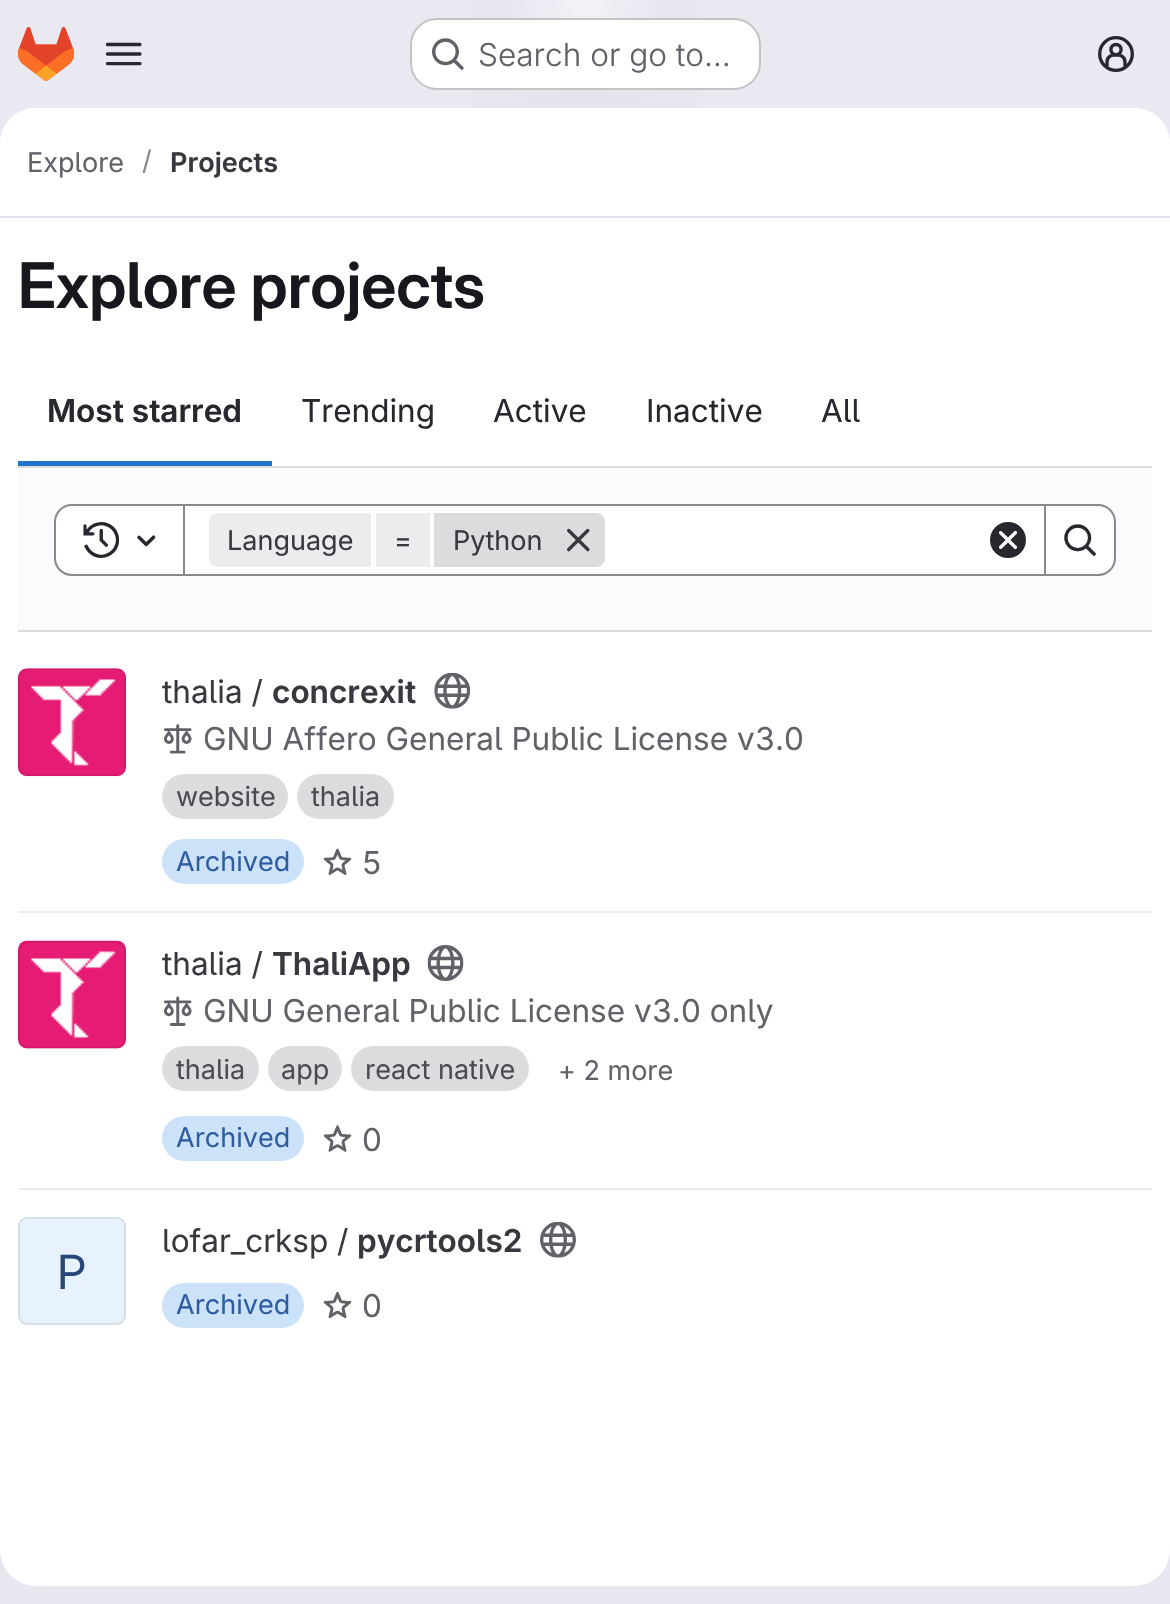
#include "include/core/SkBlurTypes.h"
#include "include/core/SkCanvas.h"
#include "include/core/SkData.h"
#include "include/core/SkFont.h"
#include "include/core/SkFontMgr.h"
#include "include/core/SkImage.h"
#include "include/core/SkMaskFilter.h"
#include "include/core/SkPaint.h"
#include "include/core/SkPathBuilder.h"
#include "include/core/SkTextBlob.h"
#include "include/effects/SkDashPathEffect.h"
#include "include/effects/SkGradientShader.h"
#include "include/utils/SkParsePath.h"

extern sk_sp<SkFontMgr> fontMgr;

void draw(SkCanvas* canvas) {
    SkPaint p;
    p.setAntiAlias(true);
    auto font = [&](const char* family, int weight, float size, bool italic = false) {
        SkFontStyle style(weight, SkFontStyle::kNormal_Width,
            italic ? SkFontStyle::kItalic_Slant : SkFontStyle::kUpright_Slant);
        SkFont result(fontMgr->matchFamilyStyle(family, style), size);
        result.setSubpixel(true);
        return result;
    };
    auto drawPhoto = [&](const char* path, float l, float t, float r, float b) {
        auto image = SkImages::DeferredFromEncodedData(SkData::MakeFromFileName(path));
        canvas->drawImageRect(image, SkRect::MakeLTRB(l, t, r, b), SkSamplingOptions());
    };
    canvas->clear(0xFFFFFFFF);
    {
        const SkColor colors[] = {0xFFE8E6F0, 0xFFEAE9F2};
        const float stops[] = {0, 0.7f};
        const SkPoint ends[] = {{740, 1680}, {430, -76}};
        p.setShader(SkGradientShader::MakeLinear(ends, colors, stops, 2, SkTileMode::kClamp));
        p.setAlpha(255);
    }
    canvas->drawRect(SkRect::MakeLTRB(0, 0, 1170, 1604), p);
    {
        const SkColor colors[] = {0xFFE4E2ED, 0x00E4E2ED};
        const float stops[] = {0, 0.27f};
        SkMatrix m = SkMatrix::Translate(585, 0).preScale(585, 1604);
        p.setShader(SkGradientShader::MakeRadial({0, 0}, 1, colors, stops, 2, SkTileMode::kClamp, 0, &m));
        p.setAlpha(255);
    }
    canvas->drawRect(SkRect::MakeLTRB(471, 0, 699, 108), p);
    {
        const SkColor colors[] = {0xFFE4E2EC, 0x00E4E2EC};
        const float stops[] = {0, 0.19f};
        SkMatrix m = SkMatrix::Translate(585, 0).preScale(585, 1604);
        p.setShader(SkGradientShader::MakeRadial({0, 0}, 1, colors, stops, 2, SkTileMode::kClamp, 0, &m));
        p.setAlpha(255);
    }
    canvas->drawRect(SkRect::MakeLTRB(539, 6, 631, 85), p);
    {
        const SkColor colors[] = {0x99FFFFFF, 0x00FFFFFF};
        const float stops[] = {0, 0.05f};
        p.setShader(SkGradientShader::MakeRadial({585, 0}, 1708, colors, stops, 2, SkTileMode::kClamp));
        p.setAlpha(255);
    }
    canvas->drawRect(SkRect::MakeLTRB(513, 0, 657, 18), p);
    drawPhoto("media/1.png", 18, 27, 74, 81);
    drawPhoto("media/2.png", 105, 42, 142, 66);
    p.setShader(nullptr);
    p.setColor(0xFFFFFFFF);
    canvas->drawRoundRect(SkRect::MakeLTRB(410, 18, 761, 90), 27, 27, p);
    p.setStyle(SkPaint::kStroke_Style);
    p.setStrokeWidth(2);
    p.setColor(0x3D050506);
    canvas->drawRoundRect(SkRect::MakeLTRB(411, 19, 760, 89), 26, 26, p);
    drawPhoto("media/3.png", 432, 38, 464, 70);
    auto font1 = font("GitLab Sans", 300, 31.5f);
    p.setStyle(SkPaint::kFill_Style);
    p.setColor(0xFF626168);
    canvas->drawString("Search or go to…", 478, 66, font1, p);
    drawPhoto("media/4.png", 1098, 36, 1134, 72);
    p.setColor(0xFFFFFFFF);
    canvas->drawRoundRect(SkRect::MakeLTRB(0, 108, 1170, 1586), 36, 36, p);
    canvas->drawPath(SkPathBuilder().moveTo(36, 108).lineTo(1134, 108).cubicTo(1154, 108, 1170, 124, 1170, 144).lineTo(1170, 218).lineTo(0, 218).lineTo(0, 144).cubicTo(0, 124, 16, 108, 36, 108).close().detach(), p);
    p.setColor(0xFFE1DFEC);
    canvas->drawRect(SkRect::MakeLTRB(0, 216, 1170, 218), p);
    auto font2 = font("GitLab Sans", 400, 27);
    p.setColor(0xFF626168);
    canvas->drawString("Explore", 27, 172, font2, p);
    p.setColor(0xFF89888D);
    canvas->drawString("/", 142, 170, font2, p);
    auto font3 = font("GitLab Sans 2", 600, 27);
    p.setColor(0xFF3A383F);
    canvas->drawString("Projects", 170, 172, font3, p);
    auto font4 = font("GitLab Sans", 600, 63);
    p.setColor(0xFF18171D);
    canvas->drawString("Explore projects", 18, 308, font4, p);
    auto font5 = font("GitLab Sans 2", 600, 31.5f);
    p.setColor(0xFF28272D);
    canvas->drawString("Most starred", 47, 422, font5, p);
    p.setColor(0xFF1F75CB);
    canvas->drawRect(SkRect::MakeLTRB(18, 461, 272, 466), p);
    auto font6 = font("GitLab Sans", 400, 31.5f);
    p.setColor(0xFF28272D);
    {
        const struct { const char* s; float x, y; } items[] = {
            {"Trending", 301, 422},
            {"Active", 493, 422},
            {"Inactive", 646, 422},
            {"All", 821, 422},
        };
        for (auto [s, x, y] : items) {
            canvas->drawString(s, x, y, font6, p);
        }
    }
    {
        const struct { float l, t, r, b; SkColor color; } items[] = {
            {18, 468, 1152, 630, 0xFFFBFAFD},
            {18, 466, 1152, 468, 0xFFDCDCDE},
            {18, 630, 1152, 632, 0xFFDCDCDE},
            {185, 506, 1044, 574, 0xFFFFFFFF},
        };
        for (auto [l, t, r, b, color] : items) {
            p.setColor(color);
            canvas->drawRect(SkRect::MakeLTRB(l, t, r, b), p);
        }
    }
    p.setStyle(SkPaint::kStroke_Style);
    p.setColor(0xFF89888D);
    canvas->drawRect(SkRect::MakeLTRB(183, 505, 1045, 575), p);
    p.setStyle(SkPaint::kFill_Style);
    p.setColor(0xFFFFFFFF);
    canvas->drawPath(SkPathBuilder().moveTo(72, 505).lineTo(184, 505).lineTo(184, 575).lineTo(72, 575).cubicTo(62.5f, 575, 55, 567.5f, 55, 558).lineTo(55, 522).cubicTo(55, 512.5f, 62.5f, 505, 72, 505).close().detach(), p);
    p.setStyle(SkPaint::kStroke_Style);
    p.setColor(0xFF89888D);
    canvas->drawPath(SkPathBuilder().moveTo(72, 505).lineTo(184, 505).lineTo(184, 575).lineTo(72, 575).cubicTo(62.5f, 575, 55, 567.5f, 55, 558).lineTo(55, 522).cubicTo(55, 512.5f, 62.5f, 505, 72, 505).close().detach(), p);
    drawPhoto("media/5.png", 83, 522, 120, 558);
    drawPhoto("media/6.png", 137, 535, 156, 547);
    p.setStyle(SkPaint::kFill_Style);
    p.setColor(0xFFECECEF);
    canvas->drawPath(SkPathBuilder().moveTo(218, 513).lineTo(371, 513).lineTo(371, 567).lineTo(218, 567).cubicTo(213, 567, 209, 563, 209, 558).lineTo(209, 522).cubicTo(209, 517, 213, 513, 218, 513).close().detach(), p);
    p.setColor(0xFF3A383F);
    canvas->drawString("Language", 227, 550, font2, p);
    p.setColor(0xFFECECEF);
    canvas->drawRect(SkRect::MakeLTRB(376, 513, 430, 567), p);
    p.setColor(0xFF3A383F);
    canvas->drawString("=", 394, 550, font2, p);
    p.setColor(0xFFDCDCDE);
    canvas->drawPath(SkPathBuilder().moveTo(434, 513).lineTo(596, 513).cubicTo(601, 513, 605, 517, 605, 522).lineTo(605, 558).cubicTo(605, 563, 601, 567, 596, 567).lineTo(434, 567).close().detach(), p);
    p.setColor(0xFF3A383F);
    canvas->drawString("Python", 453, 550, font2, p);
    drawPhoto("media/7.png", 566, 528, 590, 552);
    drawPhoto("media/8.png", 990, 522, 1026, 558);
    p.setColor(0xFFFFFFFF);
    canvas->drawPath(SkPathBuilder().moveTo(1045, 505).lineTo(1098, 505).cubicTo(1107.5f, 505, 1115, 512.5f, 1115, 522).lineTo(1115, 558).cubicTo(1115, 567.5f, 1107.5f, 575, 1098, 575).lineTo(1045, 575).close().detach(), p);
    p.setStyle(SkPaint::kStroke_Style);
    p.setColor(0xFF89888D);
    canvas->drawPath(SkPathBuilder().moveTo(1045, 505).lineTo(1098, 505).cubicTo(1107.5f, 505, 1115, 512.5f, 1115, 522).lineTo(1115, 558).cubicTo(1115, 567.5f, 1107.5f, 575, 1098, 575).lineTo(1045, 575).close().detach(), p);
    drawPhoto("media/9.png", 1064, 524, 1096, 556);
    p.setStyle(SkPaint::kFill_Style);
    p.setColor(0xFFECECEF);
    canvas->drawRect(SkRect::MakeLTRB(18, 911, 1152, 913), p);
    drawPhoto("media/10.png", 18, 668, 126, 777);
    p.setStyle(SkPaint::kStroke_Style);
    p.setColor(0x14050506);
    canvas->drawRoundRect(SkRect::MakeLTRB(19, 669, 125, 775), 8, 8, p);
    p.setStyle(SkPaint::kFill_Style);
    p.setColor(0xFF3A383F);
    canvas->drawString("thalia /", 162, 703, font6, p);
    canvas->drawString("concrexit", 272, 703, font5, p);
    drawPhoto("media/11.png", 434, 672, 471, 709);
    drawPhoto("media/12.png", 164, 724, 192, 754);
    p.setColor(0xFF626168);
    canvas->drawString("GNU Affero General Public License v3.0", 203, 750, font6, p);
    p.setColor(0xFFDCDCDE);
    canvas->drawRoundRect(SkRect::MakeLTRB(162, 774, 288, 819), 22.5f, 22.5f, p);
    p.setColor(0xFF4C4B51);
    canvas->drawString("website", 176, 806, font2, p);
    p.setColor(0xFFDCDCDE);
    canvas->drawRoundRect(SkRect::MakeLTRB(297, 774, 394, 819), 22.5f, 22.5f, p);
    p.setColor(0xFF4C4B51);
    canvas->drawString("thalia", 311, 806, font2, p);
    p.setColor(0xFFCBE2F9);
    canvas->drawRoundRect(SkRect::MakeLTRB(162, 839, 304, 884), 22.5f, 22.5f, p);
    p.setColor(0xFF2F5CA0);
    canvas->drawString("Archived", 176, 871, font2, p);
    drawPhoto("media/13.png", 323, 848, 352, 875);
    p.setColor(0xFF626168);
    canvas->drawString("5", 362, 874, font6, p);
    p.setColor(0xFFECECEF);
    canvas->drawRect(SkRect::MakeLTRB(18, 1188, 1152, 1190), p);
    drawPhoto("media/14.png", 18, 940, 126, 1049);
    p.setStyle(SkPaint::kStroke_Style);
    p.setColor(0x14050506);
    canvas->drawRoundRect(SkRect::MakeLTRB(19, 942, 125, 1048), 8, 8, p);
    p.setStyle(SkPaint::kFill_Style);
    p.setColor(0xFF3A383F);
    canvas->drawString("thalia /", 162, 975, font6, p);
    canvas->drawString("ThaliApp", 272, 975, font5, p);
    drawPhoto("media/15.png", 427, 945, 464, 981);
    drawPhoto("media/16.png", 164, 996, 192, 1026);
    p.setColor(0xFF626168);
    canvas->drawString("GNU General Public License v3.0 only", 203, 1022, font6, p);
    p.setColor(0xFFDCDCDE);
    canvas->drawRoundRect(SkRect::MakeLTRB(162, 1046, 259, 1091), 22.5f, 22.5f, p);
    p.setColor(0xFF4C4B51);
    canvas->drawString("thalia", 176, 1079, font2, p);
    p.setColor(0xFFDCDCDE);
    canvas->drawRoundRect(SkRect::MakeLTRB(268, 1046, 342, 1091), 22.5f, 22.5f, p);
    p.setColor(0xFF4C4B51);
    canvas->drawString("app", 281, 1079, font2, p);
    p.setColor(0xFFDCDCDE);
    canvas->drawRoundRect(SkRect::MakeLTRB(351, 1046, 529, 1091), 22.5f, 22.5f, p);
    p.setColor(0xFF4C4B51);
    canvas->drawString("react native", 365, 1079, font2, p);
    p.setColor(0xFF626168);
    canvas->drawString("+ 2 more", 558, 1080, font2, p);
    p.setColor(0xFFCBE2F9);
    canvas->drawRoundRect(SkRect::MakeLTRB(162, 1116, 304, 1161), 22.5f, 22.5f, p);
    p.setColor(0xFF2F5CA0);
    canvas->drawString("Archived", 176, 1147, font2, p);
    drawPhoto("media/17.png", 323, 1125, 352, 1152);
    p.setColor(0xFF626168);
    canvas->drawString("0", 362, 1151, font6, p);
    p.setColor(0xFFE7F2FC);
    canvas->drawRoundRect(SkRect::MakeLTRB(18, 1217, 126, 1325), 9, 9, p);
    p.setStyle(SkPaint::kStroke_Style);
    p.setColor(0x14050506);
    canvas->drawRoundRect(SkRect::MakeLTRB(19, 1218, 125, 1324), 8, 8, p);
    auto font7 = font("GitLab Sans 2", 400, 47);
    p.setStyle(SkPaint::kFill_Style);
    p.setColor(0xFF284779);
    canvas->drawString("P", 57, 1289, font7, p);
    p.setColor(0xFF3A383F);
    canvas->drawString("lofar_crksp /", 162, 1252, font6, p);
    canvas->drawString("pycrtools2", 357, 1252, font5, p);
    drawPhoto("media/18.png", 540, 1221, 576, 1258);
    p.setColor(0xFFCBE2F9);
    canvas->drawRoundRect(SkRect::MakeLTRB(162, 1283, 304, 1328), 22.5f, 22.5f, p);
    p.setColor(0xFF2F5CA0);
    canvas->drawString("Archived", 176, 1314, font2, p);
    drawPhoto("media/19.png", 323, 1291, 352, 1319);
    p.setColor(0xFF626168);
    canvas->drawString("0", 362, 1317, font6, p);
}
